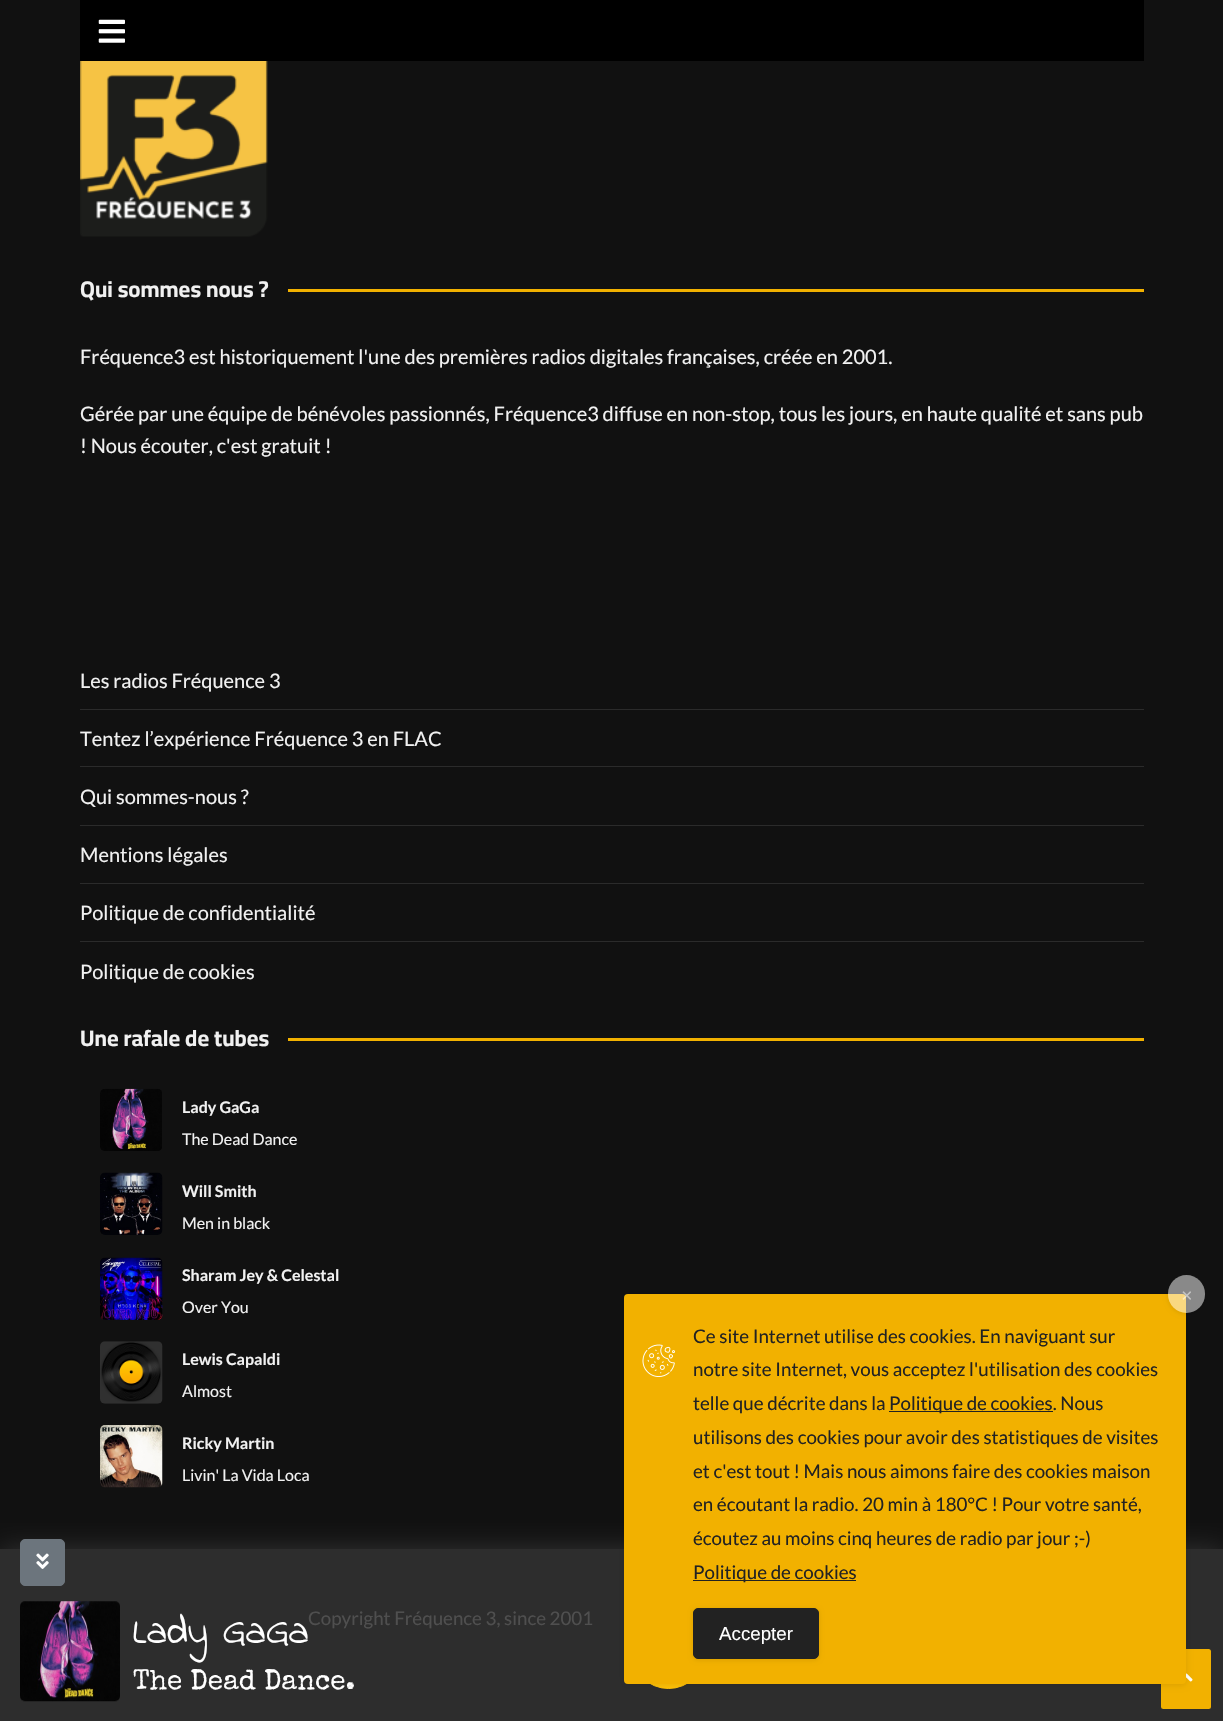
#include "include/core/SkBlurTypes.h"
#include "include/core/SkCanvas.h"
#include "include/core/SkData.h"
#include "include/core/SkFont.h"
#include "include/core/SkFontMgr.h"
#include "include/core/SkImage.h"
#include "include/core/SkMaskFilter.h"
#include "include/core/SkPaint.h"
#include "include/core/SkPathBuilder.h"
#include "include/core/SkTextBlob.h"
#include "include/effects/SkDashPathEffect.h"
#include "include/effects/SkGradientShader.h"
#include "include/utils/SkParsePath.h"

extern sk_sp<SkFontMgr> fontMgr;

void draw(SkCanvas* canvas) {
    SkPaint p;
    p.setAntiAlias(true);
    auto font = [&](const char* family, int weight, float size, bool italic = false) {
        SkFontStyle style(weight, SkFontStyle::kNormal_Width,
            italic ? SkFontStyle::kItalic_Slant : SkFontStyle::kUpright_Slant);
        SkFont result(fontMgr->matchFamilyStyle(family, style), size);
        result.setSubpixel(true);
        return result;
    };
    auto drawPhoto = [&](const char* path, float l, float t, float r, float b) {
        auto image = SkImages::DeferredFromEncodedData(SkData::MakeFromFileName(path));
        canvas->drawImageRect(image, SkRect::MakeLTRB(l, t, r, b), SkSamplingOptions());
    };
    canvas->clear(0xFF111111);
    p.setColor(0xFF000000);
    canvas->drawRect(SkRect::MakeLTRB(80, 0, 1144, 61), p);
    drawPhoto("media/1.png", 98, 19, 125, 43);
    p.setColor(0xFF2D2D2D);
    canvas->drawRect(SkRect::MakeLTRB(0, 1549, 1223, 1721), p);
    drawPhoto("media/2.png", 80, 61, 268, 237);
    auto font1 = font("Cairo", 700, 22.5f);
    p.setColor(0xFFF1F1F1);
    canvas->drawString("Qui sommes nous ?", 80, 297, font1, p);
    p.setColor(0xFFF2B100);
    canvas->drawRect(SkRect::MakeLTRB(288, 289, 1144, 292), p);
    auto font2 = font("Lato", 400, 20);
    p.setColor(0xFFF1F1F1);
    {
        const struct { const char* s; float x, y; } items[] = {
            {"Fréquence3 est historiquement l'une des premières radios digitales françaises, créée en 2001.", 80, 364},
            {"Gérée par une équipe de bénévoles passionnés, Fréquence3 diffuse en non-stop, tous les jours, en haute qualité et sans pub", 80, 421},
            {"! Nous écouter, c'est gratuit !", 80, 453},
        };
        for (auto [s, x, y] : items) {
            canvas->drawString(s, x, y, font2, p);
        }
    }
    p.setColor(0xFF2B2B2B);
    canvas->drawRect(SkRect::MakeLTRB(80, 709, 1144, 710), p);
    p.setColor(0xFFF1F1F1);
    canvas->drawString("Les radios Fréquence 3", 80, 688, font2, p);
    p.setColor(0xFF2B2B2B);
    canvas->drawRect(SkRect::MakeLTRB(80, 766, 1144, 767), p);
    p.setColor(0xFFF1F1F1);
    canvas->drawString("Tentez l’expérience Fréquence 3 en FLAC", 80, 746, font2, p);
    p.setColor(0xFF2B2B2B);
    canvas->drawRect(SkRect::MakeLTRB(80, 825, 1144, 826), p);
    p.setColor(0xFFF1F1F1);
    canvas->drawString("Qui sommes-nous ?", 80, 804, font2, p);
    p.setColor(0xFF2B2B2B);
    canvas->drawRect(SkRect::MakeLTRB(80, 883, 1144, 884), p);
    p.setColor(0xFFF1F1F1);
    canvas->drawString("Mentions légales", 80, 862, font2, p);
    p.setColor(0xFF2B2B2B);
    canvas->drawRect(SkRect::MakeLTRB(80, 941, 1144, 942), p);
    p.setColor(0xFFF1F1F1);
    canvas->drawString("Politique de confidentialité", 80, 920, font2, p);
    canvas->drawString("Politique de cookies", 80, 979, font2, p);
    canvas->drawString("Une rafale de tubes", 80, 1046, font1, p);
    p.setColor(0xFFF2B100);
    canvas->drawRect(SkRect::MakeLTRB(288, 1038, 1144, 1041), p);
    drawPhoto("media/3.png", 100, 1088, 162, 1151);
    auto font3 = font("Lato", 700, 16);
    p.setColor(0xFFF1F1F1);
    canvas->drawString("Lady GaGa", 182, 1113, font3, p);
    auto font4 = font("Lato", 400, 16);
    canvas->drawString("The Dead Dance", 182, 1145, font4, p);
    drawPhoto("media/4.png", 100, 1172, 163, 1235);
    canvas->drawString("Will Smith", 182, 1197, font3, p);
    canvas->drawString("Men in black", 182, 1229, font4, p);
    drawPhoto("media/5.png", 100, 1257, 163, 1320);
    canvas->drawString("Sharam Jey & Celestal", 182, 1281, font3, p);
    canvas->drawString("Over You", 182, 1313, font4, p);
    drawPhoto("media/6.png", 100, 1341, 163, 1404);
    canvas->drawString("Lewis Capaldi", 182, 1365, font3, p);
    canvas->drawString("Almost", 182, 1397, font4, p);
    drawPhoto("media/7.png", 100, 1425, 163, 1488);
    canvas->drawString("Ricky Martin", 182, 1449, font3, p);
    canvas->drawString("Livin' La Vida Loca", 182, 1481, font4, p);
    canvas->save();
    canvas->clipRect(SkRect::MakeLTRB(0, 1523, 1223, 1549));
    p.setColor(0xFF333333);
    p.setMaskFilter(SkMaskFilter::MakeBlur(kNormal_SkBlurStyle, 12.5f));
    canvas->drawRect(SkRect::MakeLTRB(0, 1549, 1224, 1721), p);
    p.setMaskFilter(nullptr);
    canvas->restore();
    p.setColor(0xFF6C757D);
    canvas->drawRoundRect(SkRect::MakeLTRB(20.5f, 1539.5f, 64.5f, 1585.5f), 4.5f, 4.5f, p);
    p.setStyle(SkPaint::kStroke_Style);
    p.setStrokeWidth(1);
    canvas->drawRoundRect(SkRect::MakeLTRB(20.5f, 1539.5f, 64.5f, 1585.5f), 4.5f, 4.5f, p);
    drawPhoto("media/8.png", 36, 1553, 49, 1569);
    drawPhoto("media/9.png", 20, 1601, 120, 1702);
    auto font5 = font("Indie Flower", 400, 40);
    p.setStyle(SkPaint::kFill_Style);
    p.setColor(0xFFFFFFFF);
    canvas->drawString("Lady GaGa", 133, 1643, font5, p);
    auto font6 = font("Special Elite", 400, 28);
    canvas->drawString("The Dead Dance.", 133, 1689, font6, p);
    p.setColor(0xFFFFC107);
    canvas->drawCircle(668.5f, 1651.5f, 37, p);
    p.setStyle(SkPaint::kStroke_Style);
    canvas->drawCircle(668.5f, 1651.5f, 37, p);
    auto font7 = font("Lato", 400, 18.75f);
    p.setStyle(SkPaint::kFill_Style);
    p.setColor(0xFF4F4F4F);
    canvas->drawString("Copyright Fréquence 3, since 2001", 308, 1625, font7, p);
    p.setColor(0xFFF2B100);
    canvas->drawRoundRect(SkRect::MakeLTRB(1161, 1649, 1211, 1709), 2.5f, 2.5f, p);
    drawPhoto("media/12.png", 1186, 1673, 1193, 1682);
    p.setColor(0x1A000000);
    p.setMaskFilter(SkMaskFilter::MakeBlur(kNormal_SkBlurStyle, 3));
    canvas->drawRoundRect(SkRect::MakeLTRB(624, 1295, 1186, 1685), 4, 4, p);
    p.setMaskFilter(nullptr);
    p.setColor(0xFFF2B100);
    canvas->drawRoundRect(SkRect::MakeLTRB(624, 1294, 1186, 1684), 4, 4, p);
    canvas->save();
    canvas->clipPath(SkPathBuilder(SkPathFillType::kEvenOdd).moveTo(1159, 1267).lineTo(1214, 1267).lineTo(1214, 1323).lineTo(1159, 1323).close().moveTo(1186.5f, 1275).cubicTo(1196.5f, 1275, 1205, 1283.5f, 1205, 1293.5f).lineTo(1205, 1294.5f).cubicTo(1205, 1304.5f, 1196.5f, 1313, 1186.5f, 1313).cubicTo(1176.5f, 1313, 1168, 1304.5f, 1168, 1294.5f).lineTo(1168, 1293.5f).cubicTo(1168, 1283.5f, 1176.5f, 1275, 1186.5f, 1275).close().detach(), true);
    p.setColor(0x1A000000);
    p.setMaskFilter(SkMaskFilter::MakeBlur(kNormal_SkBlurStyle, 2.5f));
    canvas->drawRoundRect(SkRect::MakeLTRB(1168, 1276, 1205, 1314), 18.5f, 18.5f, p);
    p.setMaskFilter(nullptr);
    canvas->restore();
    p.setColor(0x80FFFFFF);
    canvas->drawRoundRect(SkRect::MakeLTRB(1168, 1275, 1205, 1313), 18.5f, 18.5f, p);
    drawPhoto("media/10.png", 1182, 1291, 1191, 1300);
    drawPhoto("media/11.png", 642, 1344, 675, 1377);
    p.setColor(0xFF222222);
    {
        const struct { const char* s; float x, y; } items[] = {
            {"Ce site Internet utilise des cookies. En naviguant sur", 693, 1343},
            {"notre site Internet, vous acceptez l'utilisation des cookies", 693, 1376},
            {"telle que décrite dans la", 693, 1410},
        };
        for (auto [s, x, y] : items) {
            canvas->drawString(s, x, y, font7, p);
        }
    }
    canvas->drawRect(SkRect::MakeLTRB(889, 1411, 1053, 1412), p);
    {
        const struct { const char* s; float x, y; } items[] = {
            {"Politique de cookies. Nous", 889, 1410},
            {"utilisons des cookies pour avoir des statistiques de visites", 693, 1444},
            {"et c'est tout ! Mais nous aimons faire des cookies maison", 693, 1478},
            {"en écoutant la radio. 20 min à 180°C ! Pour votre santé,", 693, 1511},
            {"écoutez au moins cinq heures de radio par jour ;-)", 693, 1545},
        };
        for (auto [s, x, y] : items) {
            canvas->drawString(s, x, y, font7, p);
        }
    }
    canvas->drawRect(SkRect::MakeLTRB(693, 1580, 856, 1581), p);
    canvas->drawString("Politique de cookies", 693, 1579, font7, p);
    p.setColor(0x1A000000);
    p.setMaskFilter(SkMaskFilter::MakeBlur(kNormal_SkBlurStyle, 2.5f));
    canvas->drawRoundRect(SkRect::MakeLTRB(693, 1609, 819, 1660), 5, 5, p);
    p.setMaskFilter(nullptr);
    p.setColor(0xFF222222);
    canvas->drawRoundRect(SkRect::MakeLTRB(693.5f, 1608.5f, 818.5f, 1658.5f), 4.5f, 4.5f, p);
    p.setStyle(SkPaint::kStroke_Style);
    canvas->drawRoundRect(SkRect::MakeLTRB(693.5f, 1608.5f, 818.5f, 1658.5f), 4.5f, 4.5f, p);
    auto font8 = font("Liberation Sans", 400, 18.75f);
    p.setStyle(SkPaint::kFill_Style);
    p.setColor(0xFFFFFFFF);
    canvas->drawString("Accepter", 719, 1640, font8, p);
}
